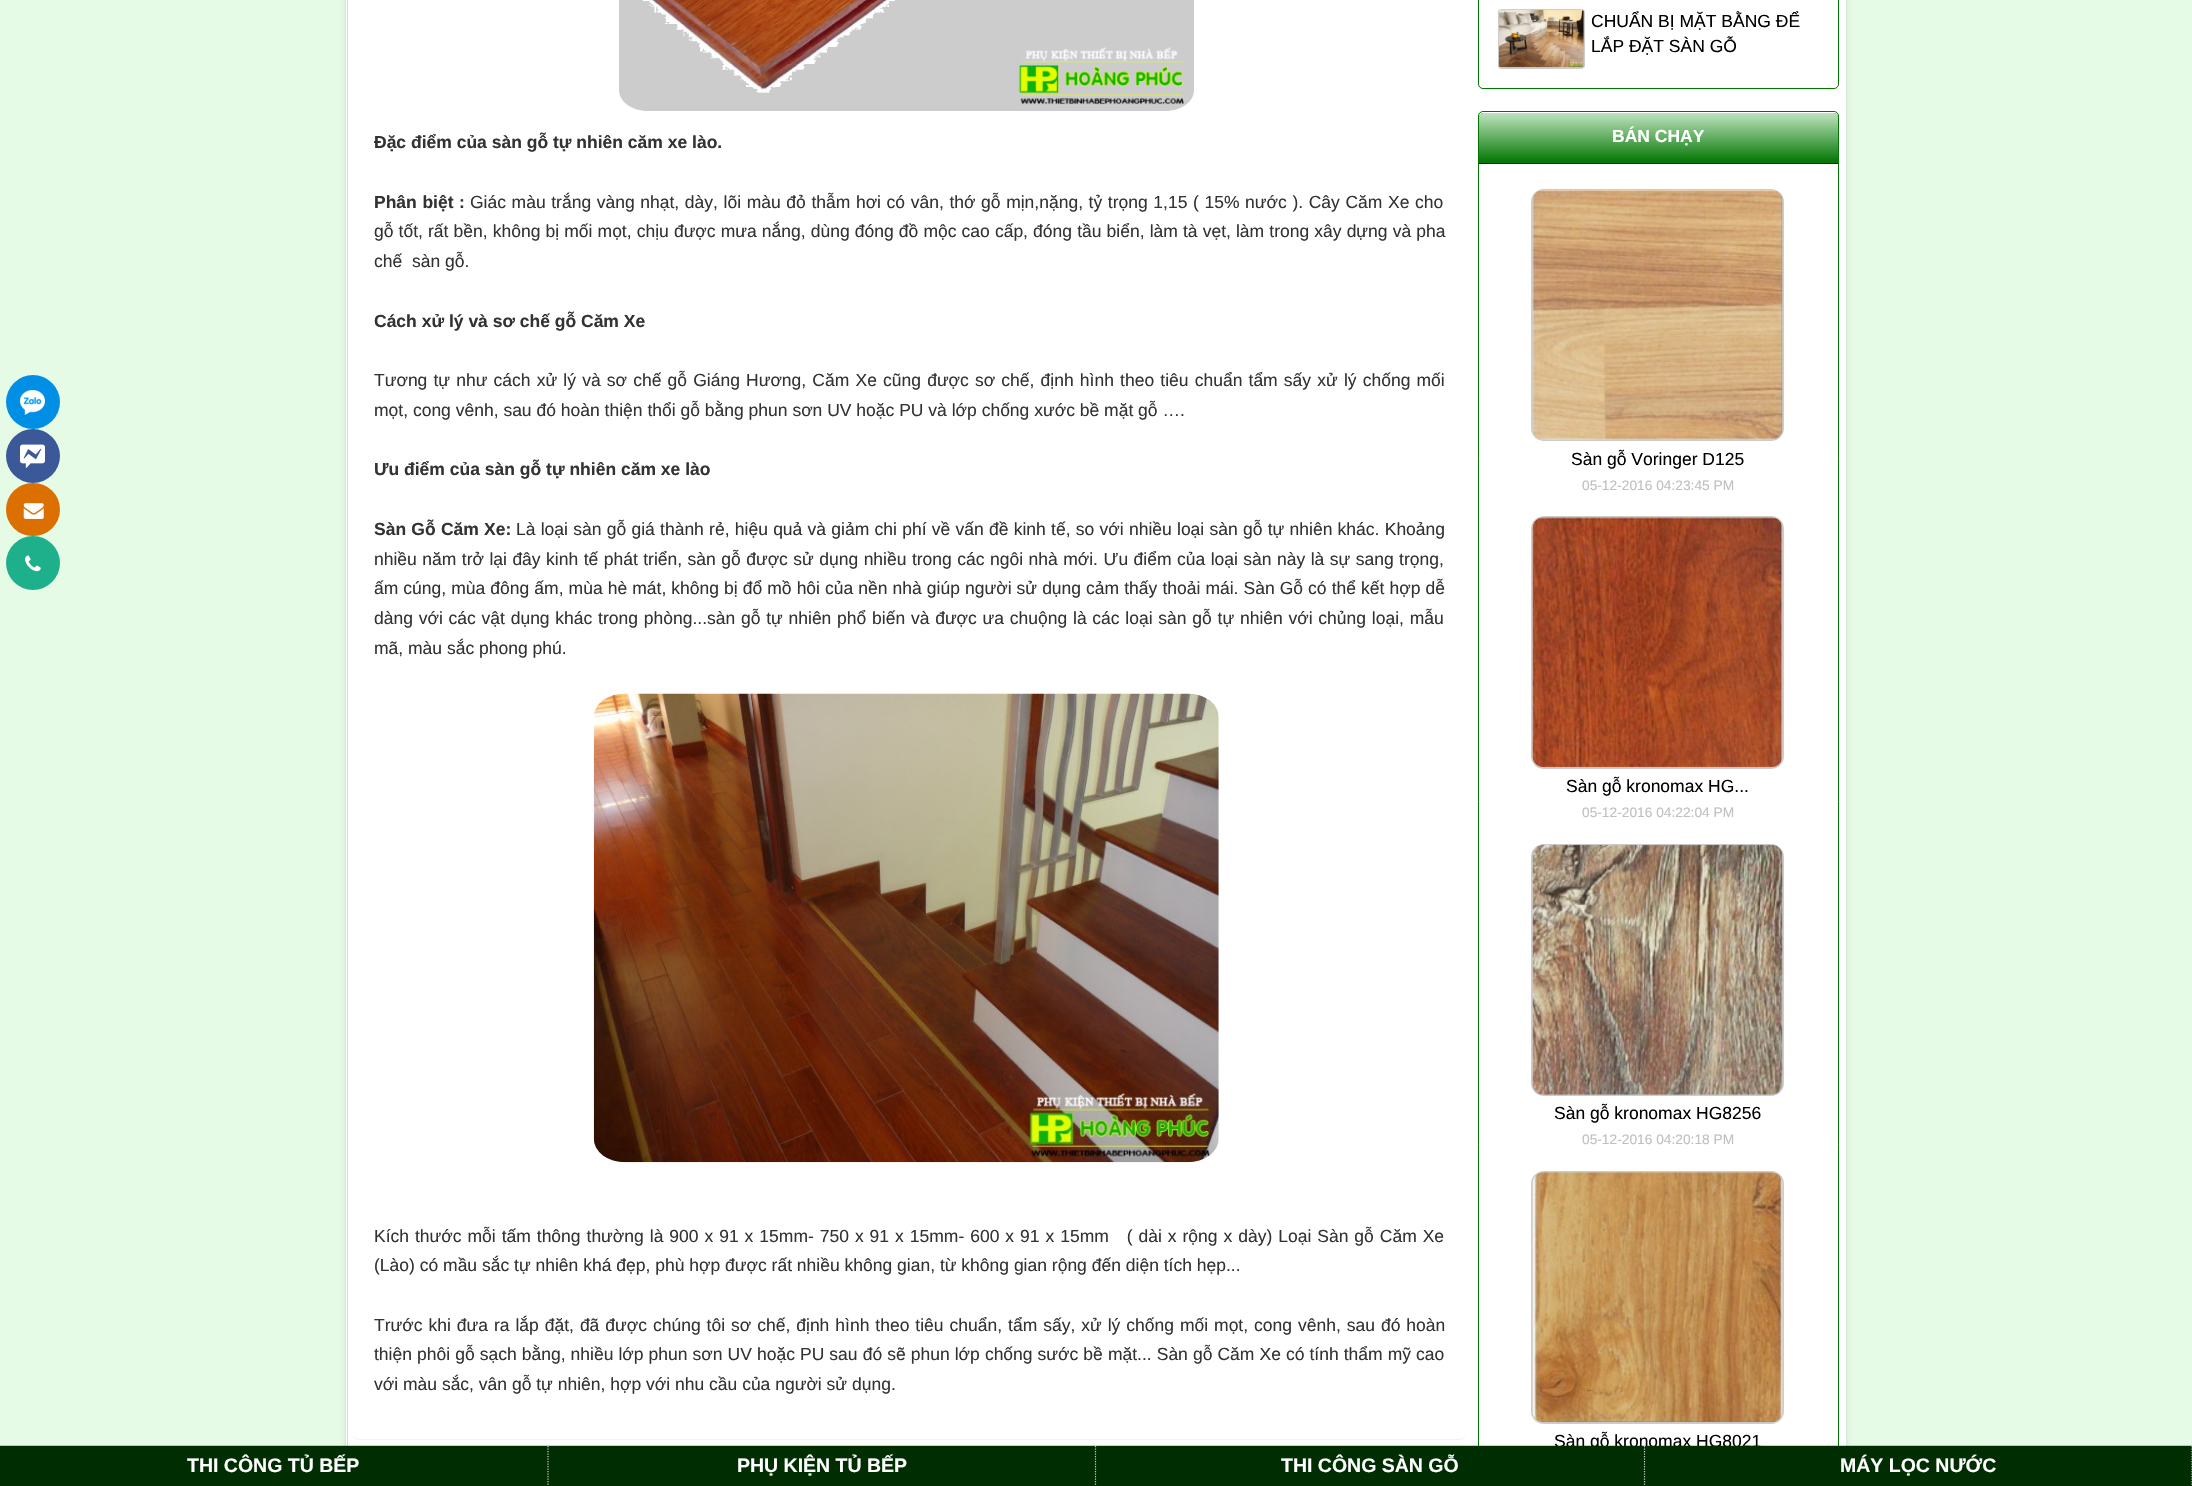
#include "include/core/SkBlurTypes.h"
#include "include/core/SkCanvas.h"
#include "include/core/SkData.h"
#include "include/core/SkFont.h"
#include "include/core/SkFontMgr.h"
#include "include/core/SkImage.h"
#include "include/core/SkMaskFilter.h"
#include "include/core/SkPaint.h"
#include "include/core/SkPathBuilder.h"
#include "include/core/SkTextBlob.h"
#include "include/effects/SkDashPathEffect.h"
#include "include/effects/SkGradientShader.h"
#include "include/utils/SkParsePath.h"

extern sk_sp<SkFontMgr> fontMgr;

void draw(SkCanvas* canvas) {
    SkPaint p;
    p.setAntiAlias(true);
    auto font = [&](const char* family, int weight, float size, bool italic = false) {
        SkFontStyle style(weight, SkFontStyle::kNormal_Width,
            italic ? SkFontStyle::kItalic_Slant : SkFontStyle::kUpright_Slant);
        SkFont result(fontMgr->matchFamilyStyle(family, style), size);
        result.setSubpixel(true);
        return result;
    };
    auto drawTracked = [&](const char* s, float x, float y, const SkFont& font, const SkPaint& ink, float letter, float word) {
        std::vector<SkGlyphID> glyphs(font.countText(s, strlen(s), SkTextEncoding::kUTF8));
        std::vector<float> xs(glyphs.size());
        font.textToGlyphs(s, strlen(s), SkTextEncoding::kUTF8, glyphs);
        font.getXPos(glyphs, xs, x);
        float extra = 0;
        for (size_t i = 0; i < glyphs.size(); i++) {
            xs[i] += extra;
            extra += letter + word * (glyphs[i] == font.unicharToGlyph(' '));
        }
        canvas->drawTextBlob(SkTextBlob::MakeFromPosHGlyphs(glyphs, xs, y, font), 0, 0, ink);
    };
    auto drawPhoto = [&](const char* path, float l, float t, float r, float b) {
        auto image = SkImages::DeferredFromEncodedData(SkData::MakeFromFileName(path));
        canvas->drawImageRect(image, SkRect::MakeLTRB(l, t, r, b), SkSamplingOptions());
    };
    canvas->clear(0xFFE6FBE6);
    p.setColor(0xFF018FE5);
    canvas->drawCircle(33, 402, 27, p);
    drawPhoto("media/1.png", 20, 390, 45, 415);
    p.setColor(0xFF3B5998);
    canvas->drawCircle(33, 456, 27, p);
    drawPhoto("media/2.png", 20, 444, 45, 468);
    p.setColor(0xFFDB6F00);
    canvas->drawRoundRect(SkRect::MakeLTRB(6, 483, 60, 536), 26.5f, 26.5f, p);
    drawPhoto("media/3.png", 23, 503, 44, 519);
    p.setColor(0xFF1EAF8B);
    canvas->drawCircle(33, 563, 27, p);
    drawPhoto("media/4.png", 25, 555, 41, 572);
    p.setColor(0x26000000);
    p.setMaskFilter(SkMaskFilter::MakeBlur(kNormal_SkBlurStyle, 2.5f));
    canvas->drawRect(SkRect::MakeLTRB(346, -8, 1846, 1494), p);
    p.setMaskFilter(nullptr);
    p.setColor(0xFFFFFFFF);
    canvas->drawRect(SkRect::MakeLTRB(348, 0, 1846, 1446), p);
    canvas->drawRect(SkRect::MakeLTRB(346, 0, 347, 1446), p);
    p.setColor(0x0D000000);
    p.setMaskFilter(SkMaskFilter::MakeBlur(kNormal_SkBlurStyle, 0.5f));
    canvas->drawRoundRect(SkRect::MakeLTRB(354, -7, 1465, 1440), 5, 5, p);
    p.setMaskFilter(nullptr);
    p.setColor(0xFFFFFFFF);
    canvas->drawRoundRect(SkRect::MakeLTRB(354, -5, 1465, 1439), 5, 5, p);
    p.setColor(0xFFCCCCCC);
    canvas->drawPath(SkPathBuilder().moveTo(648, -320).lineTo(1165, -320).cubicTo(1181, -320, 1194, -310, 1194, -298).lineTo(1194, 90).cubicTo(1194, 102, 1181, 111, 1165, 111).lineTo(648, 111).cubicTo(632, 111, 619, 102, 619, 90).lineTo(619, -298).cubicTo(619, -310, 632, -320, 648, -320).close().detach(), p);
    drawPhoto("media/5.png", 642, 0, 1184, 105);
    auto font1 = font("Liberation Sans", 700, 17.5f);
    p.setColor(0xFF333333);
    canvas->drawString("Đặc điểm của sàn gỗ tự nhiên căm xe lào.", 374, 148, font1, p);
    drawTracked("Phân biệt :", 374, 208, font1, p, 0, 0.75f);
    auto font2 = font("Liberation Sans", 400, 17.5f);
    drawTracked("Giác màu trắng vàng nhạt, dày, lõi màu đỏ thẫm hơi có vân, thớ gỗ mịn,nặng, tỷ trọng 1,15 ( 15% nước ). Cây Căm Xe cho", 470, 208, font2, p, 0, 0.75f);
    drawTracked("gỗ tốt, rất bền, không bị mối mọt, chịu được mưa nắng, dùng đóng đồ mộc cao cấp, đóng tầu biển, làm tà vẹt, làm trong xây dựng và pha", 374, 237, font2, p, 0, 0.25f);
    canvas->drawString("chế  sàn gỗ.", 374, 267, font2, p);
    canvas->drawString("Cách xử lý và sơ chế gỗ Căm Xe", 374, 327, font1, p);
    drawTracked("Tương tự như cách xử lý và sơ chế gỗ Giáng Hương, Căm Xe cũng được sơ chế, định hình theo tiêu chuẩn tẩm sấy xử lý chống mối", 374, 386, font2, p, 0, 1.3f);
    canvas->drawString("mọt, cong vênh, sau đó hoàn thiện thổi gỗ bằng phun sơn UV hoặc PU và lớp chống xước bề mặt gỗ ….", 374, 416, font2, p);
    canvas->drawString("Ưu điểm của sàn gỗ tự nhiên căm xe lào", 374, 475, font1, p);
    drawTracked("Sàn Gỗ Căm Xe:", 374, 535, font1, p, 0, 0.4f);
    drawTracked("Là loại sàn gỗ giá thành rẻ, hiệu quả và giảm chi phí về vấn đề kinh tế, so với nhiều loại sàn gỗ tự nhiên khác. Khoảng", 516, 535, font2, p, 0, 0.4f);
    drawTracked("nhiều năm trở lại đây kinh tế phát triển, sàn gỗ được sử dụng nhiều trong các ngôi nhà mới. Ưu điểm của loại sàn này là sự sang trọng,", 374, 565, font2, p, 0, 0.6f);
    drawTracked("ấm cúng, mùa đông ấm, mùa hè mát, không bị đổ mồ hôi của nền nhà giúp người sử dụng cảm thấy thoải mái. Sàn Gỗ có thể kết hợp dễ", 374, 594, font2, p, 0, 0.2f);
    drawTracked("dàng với các vật dụng khác trong phòng...sàn gỗ tự nhiên phổ biến và được ưa chuộng là các loại sàn gỗ tự nhiên với chủng loại, mẫu", 374, 624, font2, p, 0, 0.9f);
    canvas->drawString("mã, màu sắc phong phú.", 374, 654, font2, p);
    drawPhoto("media/6.png", 593, 693, 1219, 1163);
    drawTracked("Kích thước mỗi tấm thông thường là 900 x 91 x 15mm- 750 x 91 x 15mm- 600 x 91 x 15mm   ( dài x rộng x dày) Loại Sàn gỗ Căm Xe", 374, 1242, font2, p, 0, 1.1f);
    canvas->drawString("(Lào) có mầu sắc tự nhiên khá đẹp, phù hợp được rất nhiều không gian, từ không gian rộng đến diện tích hẹp...", 374, 1271, font2, p);
    drawTracked("Trước khi đưa ra lắp đặt, đã được chúng tôi sơ chế, định hình theo tiêu chuẩn, tẩm sấy, xử lý chống mối mọt, cong vênh, sau đó hoàn", 374, 1331, font2, p, 0, 1.1f);
    drawTracked("thiện phôi gỗ sạch bằng, nhiều lớp phun sơn UV hoặc PU sau đó sẽ phun lớp chống sước bề mặt... Sàn gỗ Căm Xe có tính thẩm mỹ cao", 374, 1360, font2, p, 0, 0.2f);
    canvas->drawString("với màu sắc, vân gỗ tự nhiên, hợp với nhu cầu của người sử dụng.", 374, 1390, font2, p);
    p.setColor(0x0D000000);
    p.setMaskFilter(SkMaskFilter::MakeBlur(kNormal_SkBlurStyle, 0.5f));
    canvas->drawRoundRect(SkRect::MakeLTRB(1478, -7, 1839, 90), 5, 5, p);
    p.setMaskFilter(nullptr);
    p.setColor(0xFFFFFFFF);
    canvas->drawRoundRect(SkRect::MakeLTRB(1478.5f, -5.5f, 1838.5f, 88.5f), 4.5f, 4.5f, p);
    p.setStyle(SkPaint::kStroke_Style);
    p.setStrokeWidth(1);
    p.setColor(0xFF007500);
    canvas->drawRoundRect(SkRect::MakeLTRB(1478.5f, -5.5f, 1838.5f, 88.5f), 4.5f, 4.5f, p);
    p.setStyle(SkPaint::kFill_Style);
    p.setColor(0xFFCCCCCC);
    canvas->drawPath(SkPathBuilder().moveTo(1502, 9).lineTo(1581, 9).cubicTo(1583, 9, 1585, 10, 1585, 12).lineTo(1585, 66).cubicTo(1585, 67, 1583, 69, 1581, 69).lineTo(1502, 69).cubicTo(1499, 69, 1498, 67, 1498, 66).lineTo(1498, 12).cubicTo(1498, 10, 1499, 9, 1502, 9).close().detach(), p);
    drawPhoto("media/7.png", 1498, 9, 1584, 68);
    p.setColor(0xFF000000);
    canvas->drawString("CHUẨN BỊ MẶT BẰNG ĐỂ", 1591, 27, font2, p);
    canvas->drawString("LẮP ĐẶT SÀN GỖ", 1591, 52, font2, p);
    p.setColor(0xFFFFFFFF);
    canvas->drawRoundRect(SkRect::MakeLTRB(1478.5f, 111.5f, 1838.5f, 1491.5f), 4.5f, 4.5f, p);
    p.setStyle(SkPaint::kStroke_Style);
    p.setColor(0xFF007500);
    canvas->drawRoundRect(SkRect::MakeLTRB(1478.5f, 111.5f, 1838.5f, 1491.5f), 4.5f, 4.5f, p);
    p.setStyle(SkPaint::kFill_Style);
    canvas->drawPath(SkPathBuilder().moveTo(1483, 113).lineTo(1834, 113).cubicTo(1836, 113, 1838, 115, 1838, 117).lineTo(1838, 164).lineTo(1479, 164).lineTo(1479, 117).cubicTo(1479, 115, 1481, 113, 1483, 113).close().detach(), p);
    {
        const SkColor colors[] = {0xFFC3E5C3, 0x00C3E5C3};
        const float stops[] = {0, 1};
        const SkPoint ends[] = {{1658, 112}, {1658, 163}};
        p.setShader(SkGradientShader::MakeLinear(ends, colors, stops, 2, SkTileMode::kClamp));
        p.setAlpha(255);
    }
    canvas->drawPath(SkPathBuilder().moveTo(1483, 113).lineTo(1834, 113).cubicTo(1836, 113, 1838, 115, 1838, 117).lineTo(1838, 163).lineTo(1479, 163).lineTo(1479, 117).cubicTo(1479, 115, 1481, 113, 1483, 113).close().detach(), p);
    p.setShader(nullptr);
    p.setColor(0xFF002D01);
    canvas->drawRect(SkRect::MakeLTRB(1479, 163, 1838, 164), p);
    p.setColor(0xFFFFFFFF);
    canvas->drawString("BÁN CHẠY", 1612, 142, font1, p);
    p.setColor(0xFFCCCCCC);
    canvas->drawRoundRect(SkRect::MakeLTRB(1531, 189, 1784, 441), 13, 13, p);
    drawPhoto("media/8.png", 1532, 190, 1783, 440);
    p.setColor(0xFF000000);
    canvas->drawString("Sàn gỗ Voringer D125", 1571, 465, font2, p);
    auto font3 = font("Liberation Sans", 400, 13.75f);
    p.setColor(0xFFC0C0C0);
    canvas->drawString("05-12-2016 04:23:45 PM", 1582, 490, font3, p);
    p.setColor(0xFFCCCCCC);
    canvas->drawRoundRect(SkRect::MakeLTRB(1531, 516, 1784, 769), 13, 13, p);
    drawPhoto("media/9.png", 1532, 517, 1783, 768);
    p.setColor(0xFF000000);
    canvas->drawString("Sàn gỗ kronomax HG...", 1566, 792, font2, p);
    p.setColor(0xFFC0C0C0);
    canvas->drawString("05-12-2016 04:22:04 PM", 1582, 817, font3, p);
    p.setColor(0xFFCCCCCC);
    canvas->drawRoundRect(SkRect::MakeLTRB(1531, 844, 1784, 1096), 13, 13, p);
    drawPhoto("media/10.png", 1532, 844, 1783, 1095);
    p.setColor(0xFF000000);
    canvas->drawString("Sàn gỗ kronomax HG8256", 1554, 1119, font2, p);
    p.setColor(0xFFC0C0C0);
    canvas->drawString("05-12-2016 04:20:18 PM", 1582, 1144, font3, p);
    p.setColor(0xFFCCCCCC);
    canvas->drawRoundRect(SkRect::MakeLTRB(1531, 1171, 1784, 1424), 13, 13, p);
    drawPhoto("media/11.png", 1532, 1172, 1783, 1423);
    p.setColor(0xFF000000);
    canvas->drawString("Sàn gỗ kronomax HG8021", 1554, 1447, font2, p);
    p.setColor(0x33000000);
    canvas->drawPath(SkPathBuilder().moveTo(0, 1445).lineTo(0, 1446).lineTo(2192, 1446).lineTo(2192, 1485).lineTo(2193, 1485).lineTo(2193, 1445).close().detach(), p);
    p.setColor(0xFF002D01);
    canvas->drawRect(SkRect::MakeLTRB(0, 1446, 2192, 1486), p);
    p.setStyle(SkPaint::kStroke_Style);
    p.setStrokeWidth(1.2f);
    p.setColor(0xFFCCCCCC);
    p.setPathEffect(SkDashPathEffect::Make({{1.25f, 1.25f}}, 0));
    canvas->drawPath(SkPathBuilder().moveTo(548, 1446).lineTo(548, 1486).detach(), p);
    p.setPathEffect(nullptr);
    auto font4 = font("Liberation Sans", 700, 19.5f);
    p.setStyle(SkPaint::kFill_Style);
    p.setColor(0xFFFFFFFF);
    canvas->drawString("THI CÔNG TỦ BẾP", 187, 1472, font4, p);
    p.setStyle(SkPaint::kStroke_Style);
    p.setColor(0xFFCCCCCC);
    p.setPathEffect(SkDashPathEffect::Make({{1.25f, 1.25f}}, 0));
    canvas->drawPath(SkPathBuilder().moveTo(1095.5f, 1446).lineTo(1095.5f, 1486).detach(), p);
    p.setPathEffect(nullptr);
    p.setStyle(SkPaint::kFill_Style);
    p.setColor(0xFFFFFFFF);
    canvas->drawString("PHỤ KIỆN TỦ BẾP", 737, 1472, font4, p);
    p.setStyle(SkPaint::kStroke_Style);
    p.setColor(0xFFCCCCCC);
    p.setPathEffect(SkDashPathEffect::Make({{1.25f, 1.25f}}, 0));
    canvas->drawPath(SkPathBuilder().moveTo(1644.5f, 1446).lineTo(1644.5f, 1486).detach(), p);
    p.setPathEffect(nullptr);
    p.setStyle(SkPaint::kFill_Style);
    p.setColor(0xFFFFFFFF);
    canvas->drawString("THI CÔNG SÀN GỖ", 1281, 1472, font4, p);
    p.setStyle(SkPaint::kStroke_Style);
    p.setColor(0xFFCCCCCC);
    p.setPathEffect(SkDashPathEffect::Make({{1.25f, 1.25f}}, 0));
    canvas->drawPath(SkPathBuilder().moveTo(2192, 1446).lineTo(2192, 1486).detach(), p);
    p.setPathEffect(nullptr);
    p.setStyle(SkPaint::kFill_Style);
    p.setColor(0xFFFFFFFF);
    canvas->drawString("MÁY LỌC NƯỚC", 1840, 1472, font4, p);
}
